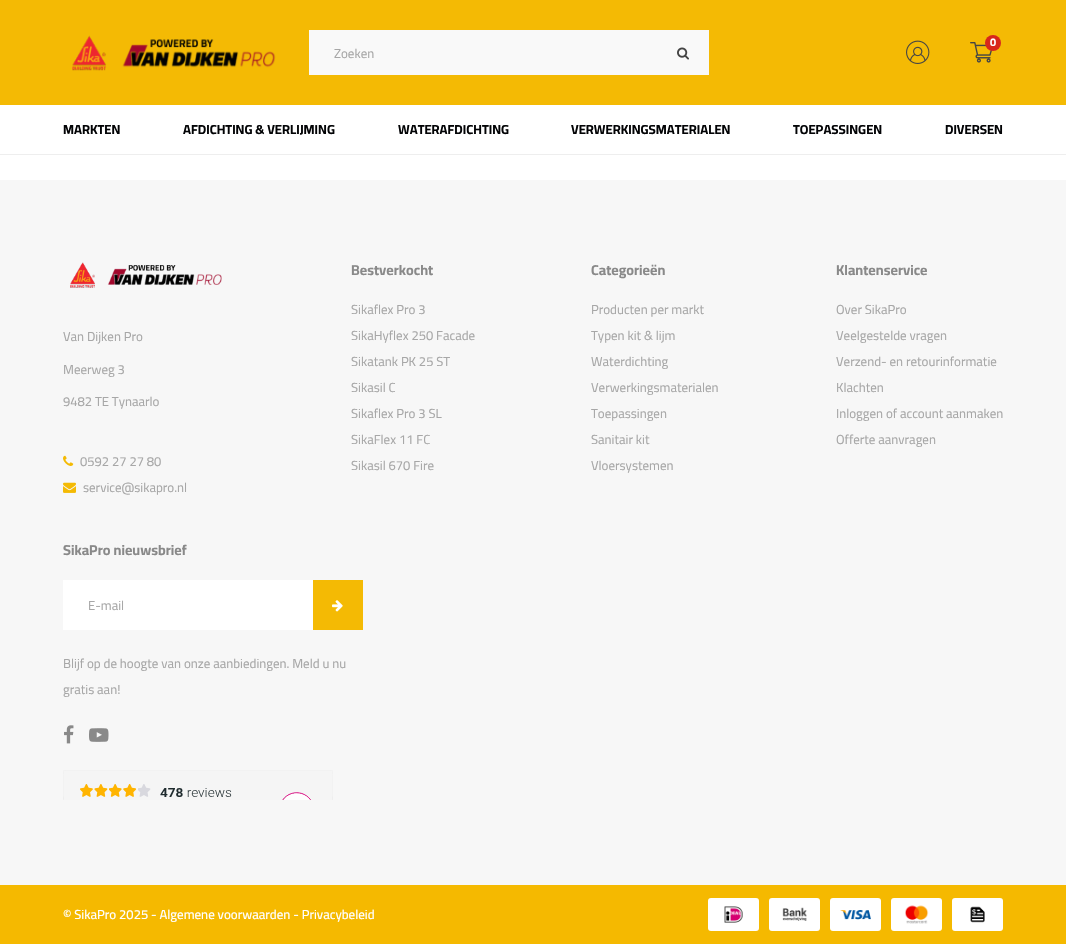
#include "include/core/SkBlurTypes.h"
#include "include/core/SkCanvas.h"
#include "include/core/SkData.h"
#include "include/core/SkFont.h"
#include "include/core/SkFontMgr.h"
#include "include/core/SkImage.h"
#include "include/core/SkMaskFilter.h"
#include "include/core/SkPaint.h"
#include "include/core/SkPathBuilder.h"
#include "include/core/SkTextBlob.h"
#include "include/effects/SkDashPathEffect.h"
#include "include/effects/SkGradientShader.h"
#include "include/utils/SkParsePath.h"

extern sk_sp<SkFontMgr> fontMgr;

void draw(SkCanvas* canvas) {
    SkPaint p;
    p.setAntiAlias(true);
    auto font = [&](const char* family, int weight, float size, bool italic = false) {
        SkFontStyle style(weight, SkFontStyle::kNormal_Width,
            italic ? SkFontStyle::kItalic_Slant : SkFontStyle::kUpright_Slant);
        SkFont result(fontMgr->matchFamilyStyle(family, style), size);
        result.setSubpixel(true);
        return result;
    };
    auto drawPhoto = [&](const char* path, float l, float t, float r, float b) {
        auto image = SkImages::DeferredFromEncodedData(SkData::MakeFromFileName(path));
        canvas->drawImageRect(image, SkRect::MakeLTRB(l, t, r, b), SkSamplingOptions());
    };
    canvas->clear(0xFFFFFFFF);
    p.setColor(0xFFF4BA04);
    canvas->drawRect(SkRect::MakeLTRB(0, 0, 1066, 105), p);
    drawPhoto("media/1.png", 72, 35, 276, 71);
    drawPhoto("media/2.png", 906, 40, 930, 64);
    drawPhoto("media/3.png", 970, 42, 992, 63);
    p.setColor(0xFFD8261B);
    canvas->drawCircle(993, 43, 8, p);
    auto font1 = font("Cairo", 700, 11);
    p.setColor(0xFFFFFFFF);
    canvas->drawString("0", 990, 46, font1, p);
    p.setColor(0xFFF9F9F9);
    canvas->drawRect(SkRect::MakeLTRB(309, 30, 709, 75), p);
    auto font2 = font("Cairo", 400, 13);
    p.setColor(0xFFA7A7A7);
    canvas->drawString("Zoeken", 334, 58, font2, p);
    drawPhoto("media/4.png", 677, 47, 689, 60);
    p.setColor(0xFFEEEEEE);
    canvas->drawRect(SkRect::MakeLTRB(0, 154, 1066, 155), p);
    auto font3 = font("Cairo", 700, 13);
    p.setColor(0xFF030406);
    {
        const struct { const char* s; float x, y; } items[] = {
            {"MARKTEN", 63, 134},
            {"AFDICHTING & VERLIJMING", 183, 134},
            {"WATERAFDICHTING", 398, 134},
            {"VERWERKINGSMATERIALEN", 571, 134},
            {"TOEPASSINGEN", 793, 134},
            {"DIVERSEN", 945, 134},
        };
        for (auto [s, x, y] : items) {
            canvas->drawString(s, x, y, font3, p);
        }
    }
    p.setColor(0xFFF7F7F7);
    canvas->drawRect(SkRect::MakeLTRB(0, 180, 1066, 885), p);
    drawPhoto("media/5.png", 70, 262, 222, 288);
    p.setColor(0xFFA7A7A7);
    {
        const struct { const char* s; float x, y; } items[] = {
            {"Van Dijken Pro", 63, 341},
            {"Meerweg 3", 63, 374},
            {"9482 TE Tynaarlo", 63, 406},
        };
        for (auto [s, x, y] : items) {
            canvas->drawString(s, x, y, font2, p);
        }
    }
    drawPhoto("media/6.png", 63, 455, 74, 466);
    canvas->drawString("0592 27 27 80", 80, 466, font2, p);
    drawPhoto("media/7.png", 63, 482, 76, 493);
    canvas->drawString("service@sikapro.nl", 83, 492, font2, p);
    auto font4 = font("Cairo", 700, 14.25f);
    p.setColor(0xFF898989);
    canvas->drawString("Bestverkocht", 351, 275, font4, p);
    p.setColor(0xFFA7A7A7);
    {
        const struct { const char* s; float x, y; } items[] = {
            {"Sikaflex Pro 3", 351, 314},
            {"SikaHyflex 250 Facade", 351, 340},
            {"Sikatank PK 25 ST", 351, 366},
            {"Sikasil C", 351, 392},
            {"Sikaflex Pro 3 SL", 351, 418},
            {"SikaFlex 11 FC", 351, 444},
            {"Sikasil 670 Fire", 351, 470},
        };
        for (auto [s, x, y] : items) {
            canvas->drawString(s, x, y, font2, p);
        }
    }
    p.setColor(0xFF898989);
    canvas->drawString("Categorieën", 591, 275, font4, p);
    p.setColor(0xFFA7A7A7);
    {
        const struct { const char* s; float x, y; } items[] = {
            {"Producten per markt", 591, 314},
            {"Typen kit & lijm", 591, 340},
            {"Waterdichting", 591, 366},
            {"Verwerkingsmaterialen", 591, 392},
            {"Toepassingen", 591, 418},
            {"Sanitair kit", 591, 444},
            {"Vloersystemen", 591, 470},
        };
        for (auto [s, x, y] : items) {
            canvas->drawString(s, x, y, font2, p);
        }
    }
    p.setColor(0xFF898989);
    canvas->drawString("Klantenservice", 836, 275, font4, p);
    p.setColor(0xFFA7A7A7);
    {
        const struct { const char* s; float x, y; } items[] = {
            {"Over SikaPro", 836, 314},
            {"Veelgestelde vragen", 836, 340},
            {"Verzend- en retourinformatie", 836, 366},
            {"Klachten", 836, 392},
            {"Inloggen of account aanmaken", 836, 418},
            {"Offerte aanvragen", 836, 444},
        };
        for (auto [s, x, y] : items) {
            canvas->drawString(s, x, y, font2, p);
        }
    }
    p.setColor(0xFF898989);
    canvas->drawString("SikaPro nieuwsbrief", 63, 555, font4, p);
    p.setColor(0xFFFFFFFF);
    canvas->drawRect(SkRect::MakeLTRB(63, 580, 313, 630), p);
    p.setColor(0xFFA7A7A7);
    canvas->drawString("E-mail", 88, 610, font2, p);
    p.setColor(0xFFF4BA04);
    canvas->drawRect(SkRect::MakeLTRB(313, 580, 363, 630), p);
    drawPhoto("media/8.png", 332, 600, 343, 612);
    p.setColor(0xFFA7A7A7);
    canvas->drawString("Blijf op de hoogte van onze aanbiedingen. Meld u nu", 63, 668, font2, p);
    canvas->drawString("gratis aan!", 63, 694, font2, p);
    drawPhoto("media/9.png", 64, 725, 74, 744);
    drawPhoto("media/10.png", 89, 728, 109, 742);
    drawPhoto("media/11.png", 63, 770, 333, 800);
    p.setColor(0xFFF5B900);
    canvas->drawRect(SkRect::MakeLTRB(0, 885, 1066, 944), p);
    auto font5 = font("Cairo", 500, 13);
    p.setColor(0xFFFFFFFF);
    canvas->drawString("© SikaPro 2025 - Algemene voorwaarden - Privacybeleid", 63, 919, font5, p);
    canvas->drawRoundRect(SkRect::MakeLTRB(708, 898, 759, 931), 3, 3, p);
    drawPhoto("media/12.png", 724, 906, 743, 923);
    canvas->drawRoundRect(SkRect::MakeLTRB(769, 898, 820, 931), 3, 3, p);
    drawPhoto("media/13.png", 782, 907, 807, 921);
    canvas->drawRoundRect(SkRect::MakeLTRB(830, 898, 881, 931), 3, 3, p);
    drawPhoto("media/14.png", 840, 910, 871, 920);
    canvas->drawRoundRect(SkRect::MakeLTRB(891, 898, 942, 931), 3, 3, p);
    drawPhoto("media/15.png", 905, 905, 929, 924);
    canvas->drawRoundRect(SkRect::MakeLTRB(952, 898, 1003, 931), 3, 3, p);
    drawPhoto("media/16.png", 970, 906, 985, 923);
}
